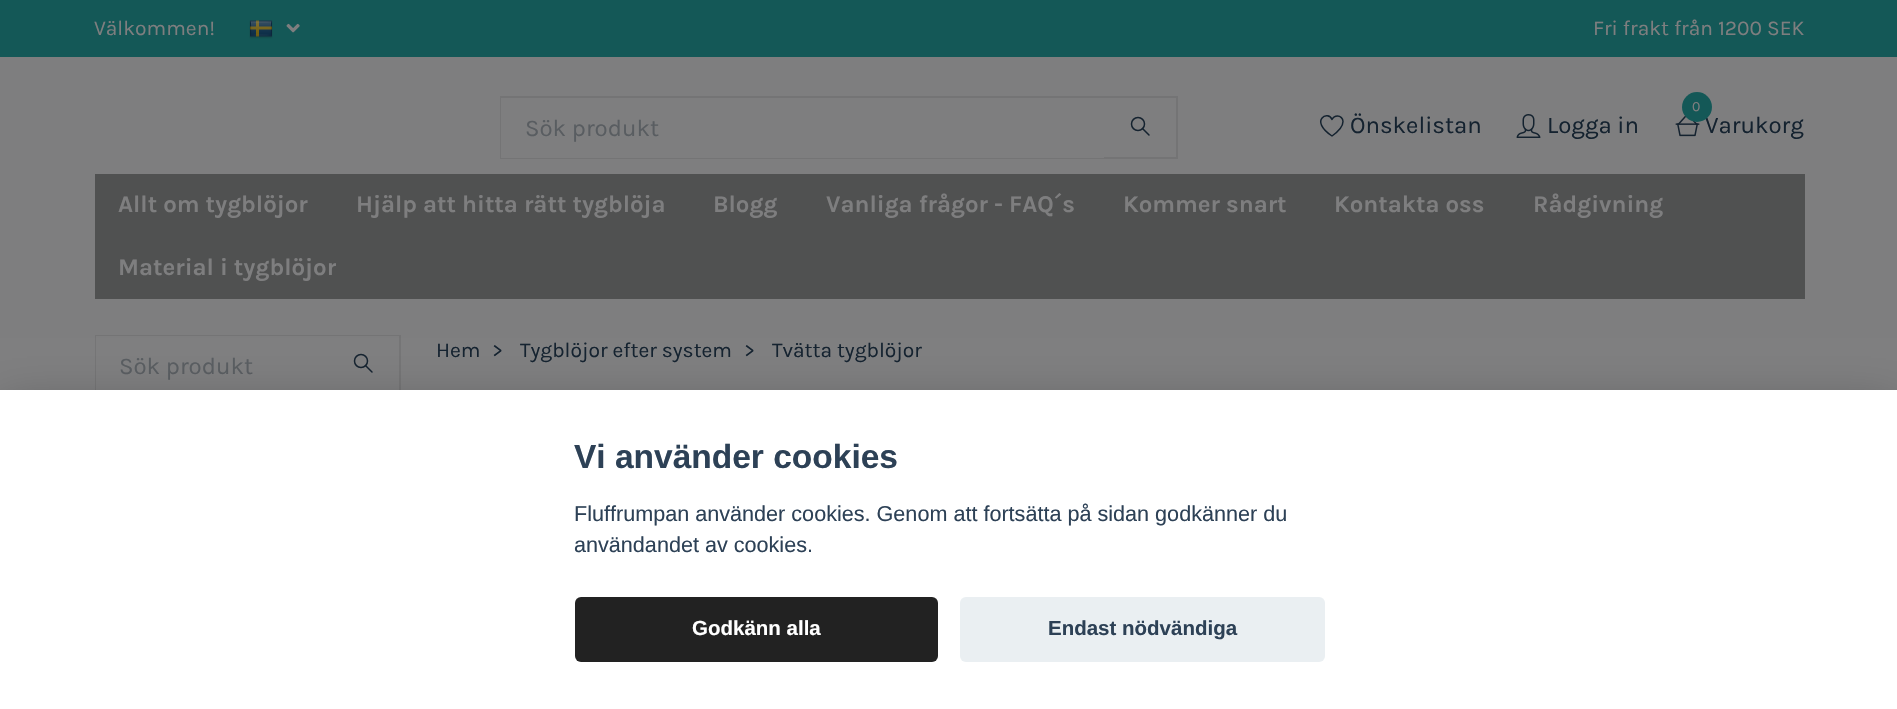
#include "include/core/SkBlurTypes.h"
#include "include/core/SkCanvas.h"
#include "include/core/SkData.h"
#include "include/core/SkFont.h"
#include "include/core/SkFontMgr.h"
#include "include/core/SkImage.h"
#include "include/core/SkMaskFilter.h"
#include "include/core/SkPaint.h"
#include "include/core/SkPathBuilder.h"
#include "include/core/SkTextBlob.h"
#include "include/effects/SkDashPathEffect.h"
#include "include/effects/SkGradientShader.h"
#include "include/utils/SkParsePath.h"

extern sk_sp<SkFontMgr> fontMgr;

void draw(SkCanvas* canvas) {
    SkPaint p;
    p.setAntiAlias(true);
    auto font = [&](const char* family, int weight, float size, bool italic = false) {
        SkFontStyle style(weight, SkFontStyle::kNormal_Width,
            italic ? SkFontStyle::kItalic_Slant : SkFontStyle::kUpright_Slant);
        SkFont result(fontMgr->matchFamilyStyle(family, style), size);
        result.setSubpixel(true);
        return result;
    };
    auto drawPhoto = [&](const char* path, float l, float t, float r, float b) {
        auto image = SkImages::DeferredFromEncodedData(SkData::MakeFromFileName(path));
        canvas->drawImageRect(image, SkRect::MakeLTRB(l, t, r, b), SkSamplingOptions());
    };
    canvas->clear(0xFF7E7E7F);
    p.setColor(0xFF145857);
    canvas->drawRect(SkRect::MakeLTRB(0, 0, 1897, 57), p);
    auto font1 = font("Karla", 400, 21);
    p.setColor(0xFF7E7E7F);
    canvas->drawString("Välkommen!", 94, 35, font1, p);
    drawPhoto("media/1.png", 249, 20, 273, 39);
    drawPhoto("media/2.png", 286, 23, 300, 33);
    canvas->drawString("Fri frakt från 1200 SEK", 1593, 35, font1, p);
    p.setStyle(SkPaint::kStroke_Style);
    p.setStrokeWidth(2);
    p.setColor(0xFF747475);
    canvas->drawRect(SkRect::MakeLTRB(501, 97, 1177, 158), p);
    p.setStyle(SkPaint::kFill_Style);
    p.setColor(0xFF7E7E7F);
    canvas->drawRect(SkRect::MakeLTRB(501, 98, 1104, 158), p);
    auto font2 = font("Karla", 400, 24);
    p.setColor(0xFF595D61);
    canvas->drawString("Sök produkt", 525, 136, font2, p);
    p.setStyle(SkPaint::kStroke_Style);
    p.setStrokeWidth(1.5f);
    p.setStrokeCap(SkPaint::kRound_Cap);
    p.setStrokeJoin(SkPaint::kRound_Join);
    p.setColor(0xFF14222F);
    canvas->drawPath(SkPathBuilder().moveTo(1142.5f, 128.5f).lineTo(1149, 135).detach(), p);
    p.setStrokeCap(SkPaint::kButt_Cap);
    p.setStrokeJoin(SkPaint::kMiter_Join);
    canvas->drawCircle(1138, 124, 6.5f, p);
    p.setStrokeCap(SkPaint::kRound_Cap);
    p.setStrokeJoin(SkPaint::kRound_Join);
    canvas->drawPath(SkPathBuilder().moveTo(1337.5f, 116).cubicTo(1335, 116, 1333, 117.5f, 1332, 119.5f).cubicTo(1328.5f, 110, 1308.5f, 120, 1332, 136).cubicTo(1339, 131, 1343, 126.5f, 1343, 121.5f).cubicTo(1343, 118.5f, 1340.5f, 116, 1337.5f, 116).close().detach(), p);
    p.setStyle(SkPaint::kFill_Style);
    canvas->drawString("Önskelistan", 1350, 133, font2, p);
    drawPhoto("media/3.png", 1516, 114, 1541, 138);
    canvas->drawString("Logga in", 1547, 133, font2, p);
    drawPhoto("media/4.png", 1675, 116, 1700, 137);
    canvas->drawString("Varukorg", 1705, 133, font2, p);
    p.setColor(0xFF145857);
    canvas->drawCircle(1697, 107, 15, p);
    auto font3 = font("Karla", 400, 14);
    p.setColor(0xFF7E7E7F);
    canvas->drawString("0", 1692, 111, font3, p);
    p.setColor(0xFF505151);
    canvas->drawRect(SkRect::MakeLTRB(95, 174, 1805, 299), p);
    auto font4 = font("Karla", 700, 24);
    p.setColor(0xFF7E7E7F);
    {
        const struct { const char* s; float x, y; } items[] = {
            {"Allt om tygblöjor", 118, 212},
            {"Hjälp att hitta rätt tygblöja", 356, 212},
            {"Blogg", 713, 212},
            {"Vanliga frågor - FAQ´s", 826, 212},
            {"Kommer snart", 1123, 212},
            {"Kontakta oss", 1334, 212},
            {"Rådgivning", 1533, 212},
            {"Material i tygblöjor", 118, 275},
        };
        for (auto [s, x, y] : items) {
            canvas->drawString(s, x, y, font4, p);
        }
    }
    p.setColor(0xFF14222F);
    {
        const struct { const char* s; float x, y; } items[] = {
            {"Hem", 436, 357},
            {">", 492, 357},
            {"Tygblöjor efter system", 520, 357},
            {">", 744, 357},
            {"Tvätta tygblöjor", 772, 357},
        };
        for (auto [s, x, y] : items) {
            canvas->drawString(s, x, y, font1, p);
        }
    }
    p.setStyle(SkPaint::kStroke_Style);
    p.setStrokeWidth(2);
    p.setStrokeCap(SkPaint::kButt_Cap);
    p.setStrokeJoin(SkPaint::kMiter_Join);
    p.setColor(0xFF747475);
    canvas->drawRect(SkRect::MakeLTRB(96, 336, 400, 395), p);
    p.setStyle(SkPaint::kFill_Style);
    p.setColor(0xFF7E7E7F);
    canvas->drawRect(SkRect::MakeLTRB(96, 336, 327, 390), p);
    p.setColor(0xFF595D61);
    canvas->drawString("Sök produkt", 119, 374, font2, p);
    p.setColor(0xFF7E7E7F);
    canvas->drawRect(SkRect::MakeLTRB(327, 336, 399, 337), p);
    p.setStyle(SkPaint::kStroke_Style);
    p.setStrokeWidth(1.5f);
    p.setStrokeCap(SkPaint::kRound_Cap);
    p.setStrokeJoin(SkPaint::kRound_Join);
    p.setColor(0xFF14222F);
    canvas->drawPath(SkPathBuilder().moveTo(365.5f, 365.5f).lineTo(372, 372).detach(), p);
    p.setStrokeCap(SkPaint::kButt_Cap);
    p.setStrokeJoin(SkPaint::kMiter_Join);
    canvas->drawCircle(361, 361, 6.5f, p);
    p.setStyle(SkPaint::kFill_Style);
    p.setColor(0x47020203);
    p.setMaskFilter(SkMaskFilter::MakeBlur(kNormal_SkBlurStyle, 22.5f));
    canvas->drawRect(SkRect::MakeLTRB(0, 405, 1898, 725), p);
    p.setMaskFilter(nullptr);
    p.setColor(0xFFFFFFFF);
    canvas->drawRect(SkRect::MakeLTRB(0, 390, 1897, 709), p);
    auto font5 = font("Liberation Sans", 700, 33.5f);
    p.setColor(0xFF2D4156);
    canvas->drawString("Vi använder cookies", 574, 468, font5, p);
    auto font6 = font("Liberation Sans", 400, 21.6f);
    canvas->drawString("Fluffrumpan använder cookies. Genom att fortsätta på sidan godkänner du", 574, 521, font6, p);
    canvas->drawString("användandet av cookies.", 574, 552, font6, p);
    p.setColor(0xFF222222);
    canvas->drawRoundRect(SkRect::MakeLTRB(575, 597, 938, 662), 6, 6, p);
    auto font7 = font("Liberation Sans", 700, 20.5f);
    p.setColor(0xFFFFFFFF);
    canvas->drawString("Godkänn alla", 692, 635, font7, p);
    p.setColor(0xFFEAEFF2);
    canvas->drawRoundRect(SkRect::MakeLTRB(960, 597, 1325, 662), 6, 6, p);
    p.setColor(0xFF2D4156);
    canvas->drawString("Endast nödvändiga", 1048, 635, font7, p);
}
